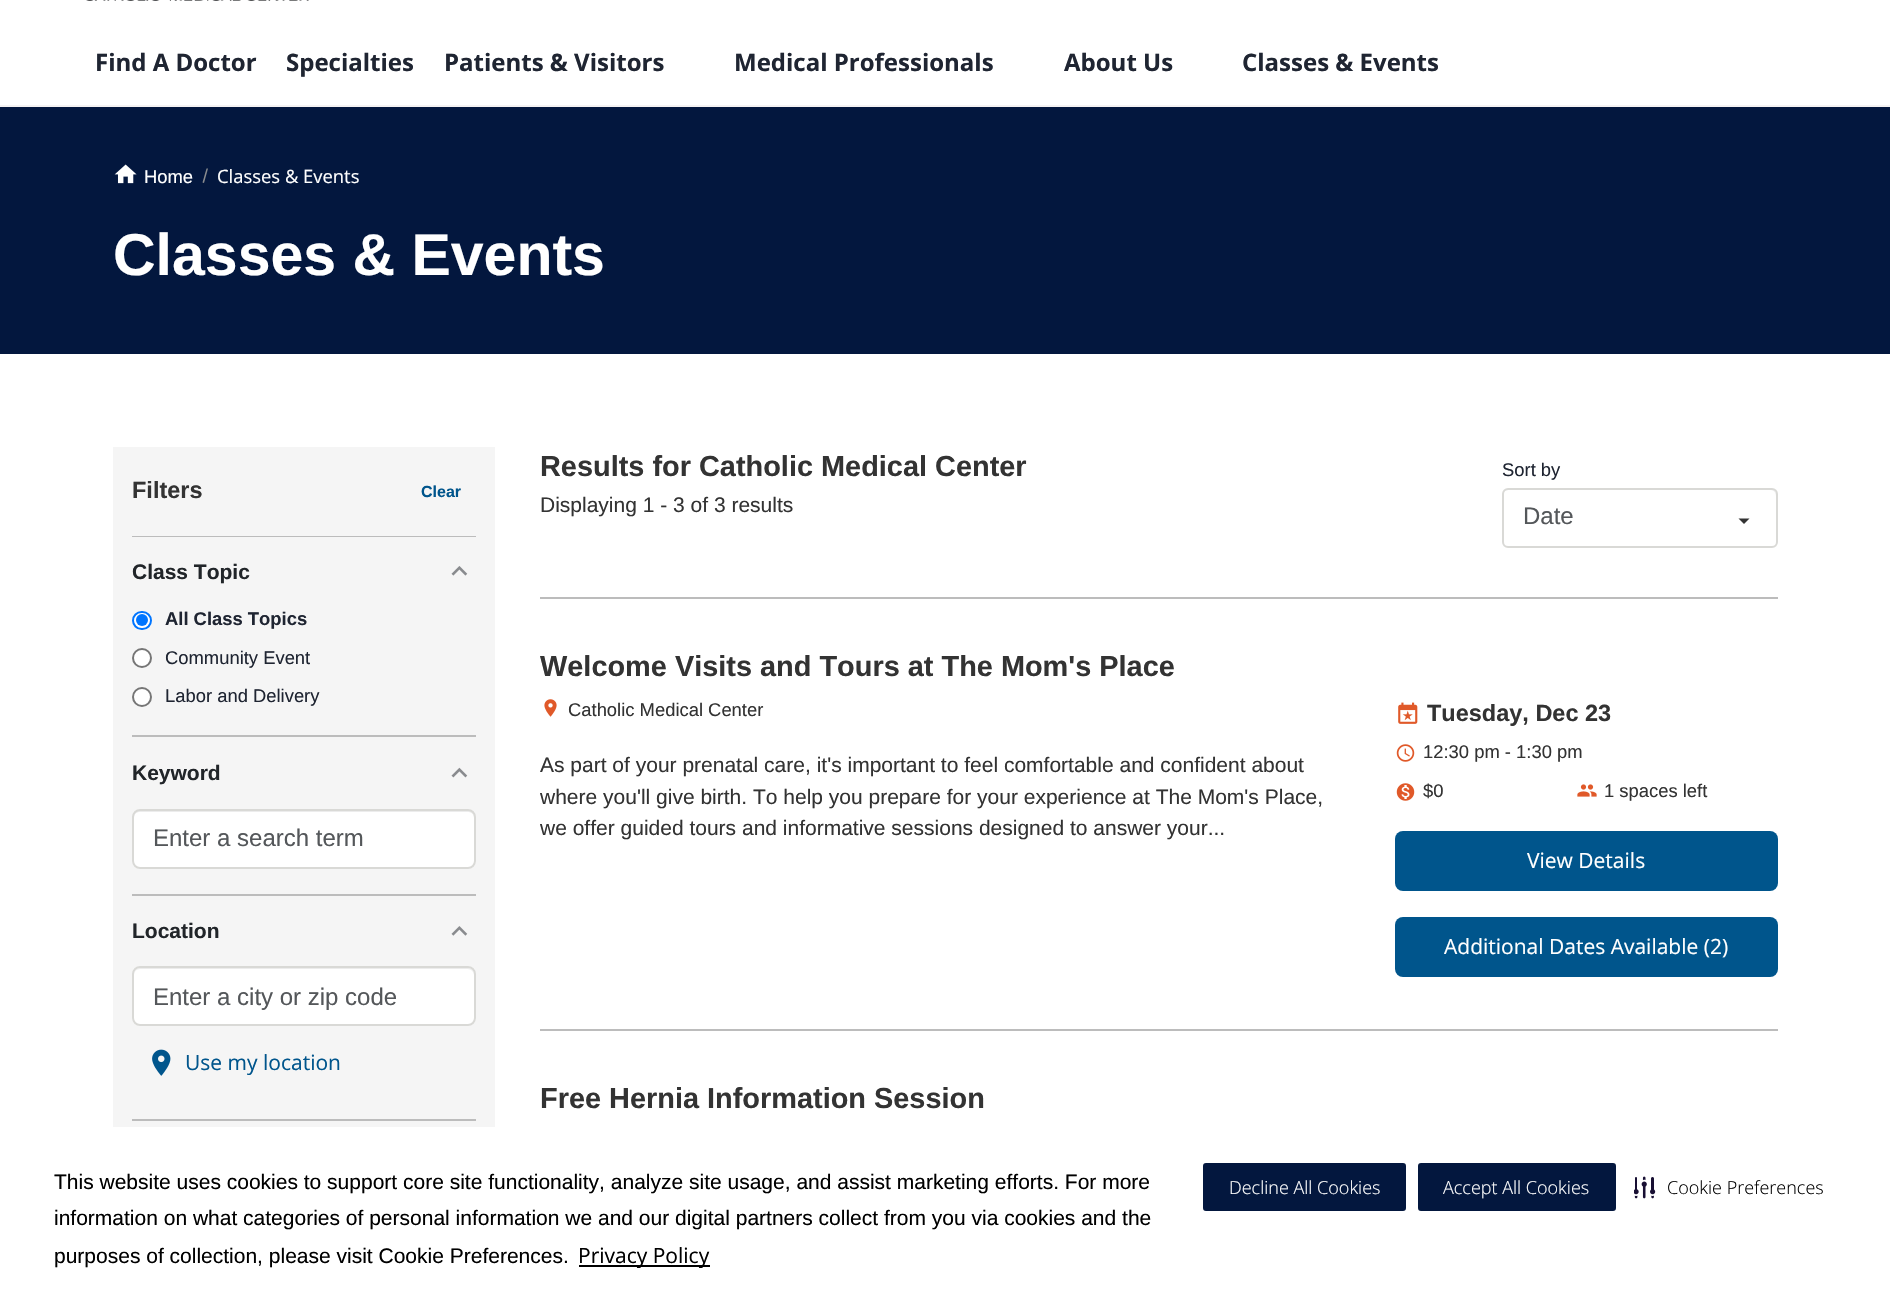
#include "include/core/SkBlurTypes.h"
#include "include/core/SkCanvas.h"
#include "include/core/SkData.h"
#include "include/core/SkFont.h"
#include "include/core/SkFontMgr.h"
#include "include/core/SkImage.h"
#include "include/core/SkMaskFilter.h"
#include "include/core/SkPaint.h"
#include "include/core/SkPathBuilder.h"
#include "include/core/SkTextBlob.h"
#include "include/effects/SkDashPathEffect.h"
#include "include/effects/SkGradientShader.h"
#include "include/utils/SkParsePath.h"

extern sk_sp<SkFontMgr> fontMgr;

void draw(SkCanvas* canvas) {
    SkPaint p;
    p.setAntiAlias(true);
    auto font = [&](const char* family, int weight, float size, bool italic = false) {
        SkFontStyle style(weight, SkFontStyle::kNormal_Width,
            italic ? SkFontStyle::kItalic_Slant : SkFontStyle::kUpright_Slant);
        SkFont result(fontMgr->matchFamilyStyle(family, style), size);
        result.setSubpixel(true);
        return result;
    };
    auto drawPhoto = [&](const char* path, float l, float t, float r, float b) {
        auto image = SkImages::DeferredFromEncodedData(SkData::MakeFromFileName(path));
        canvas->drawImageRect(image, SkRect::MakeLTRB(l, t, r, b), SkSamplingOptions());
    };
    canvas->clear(0xFFFFFFFF);
    drawPhoto("media/1.png", 86, 0, 309, 1);
    p.setColor(0xFFF5F3F3);
    canvas->drawRect(SkRect::MakeLTRB(0, 105, 1890, 107), p);
    auto font1 = font("Open Sans", 700, 24);
    p.setColor(0xFF1F2532);
    {
        const struct { const char* s; float x, y; } items[] = {
            {"Find A Doctor", 95, 71},
            {"Specialties", 286, 71},
            {"Patients & Visitors", 444, 71},
            {"Medical Professionals", 734, 71},
            {"About Us", 1064, 71},
            {"Classes & Events", 1242, 71},
        };
        for (auto [s, x, y] : items) {
            canvas->drawString(s, x, y, font1, p);
        }
    }
    p.setColor(0xFF03173E);
    canvas->drawRect(SkRect::MakeLTRB(0, 107, 1890, 354), p);
    drawPhoto("media/2.png", 114, 164, 137, 184);
    auto font2 = font("Liberation Sans", 400, 18.4f);
    p.setColor(0xFFFFFFFF);
    canvas->drawString("Home", 144, 183, font2, p);
    p.setColor(0xFF898B8E);
    canvas->drawPath(SkPathBuilder().moveTo(206.5f, 168.5f).lineTo(208, 168.5f).lineTo(204, 183).lineTo(202.5f, 182.5f).close().detach(), p);
    auto font3 = font("Open Sans", 400, 18.4f);
    p.setColor(0xFFFFFFFF);
    canvas->drawString("Classes & Events", 217, 183, font3, p);
    auto font4 = font("Liberation Sans", 700, 59);
    canvas->drawString("Classes & Events", 113, 275, font4, p);
    p.setColor(0xFFF5F5F5);
    canvas->drawRect(SkRect::MakeLTRB(113, 447, 495, 1127), p);
    auto font5 = font("Liberation Sans", 700, 23.5f);
    p.setColor(0xFF333333);
    canvas->drawString("Filters", 132, 498, font5, p);
    auto font6 = font("Liberation Sans", 700, 16);
    p.setColor(0xFF00558C);
    canvas->drawString("Clear", 421, 497, font6, p);
    p.setColor(0xFFBCBCBC);
    canvas->drawRect(SkRect::MakeLTRB(132, 536, 476, 537), p);
    auto font7 = font("Liberation Sans", 700, 21);
    p.setColor(0xFF212529);
    canvas->drawString("Class Topic", 132, 579, font7, p);
    drawPhoto("media/3.png", 451, 566, 468, 576);
    p.setColor(0xFFFFFFFF);
    canvas->drawRoundRect(SkRect::MakeLTRB(133, 612, 151, 629), 8.5f, 8.5f, p);
    p.setStyle(SkPaint::kStroke_Style);
    p.setStrokeWidth(2);
    p.setColor(0xFF0075FF);
    canvas->drawRoundRect(SkRect::MakeLTRB(133, 612, 151, 629), 8.5f, 8.5f, p);
    p.setStyle(SkPaint::kFill_Style);
    canvas->drawCircle(142, 620, 6, p);
    auto font8 = font("Liberation Sans", 700, 18.4f);
    p.setColor(0xFF1F2532);
    canvas->drawString("All Class Topics", 165, 625, font8, p);
    p.setColor(0xFFFFFFFF);
    canvas->drawCircle(142, 658, 9, p);
    p.setStyle(SkPaint::kStroke_Style);
    p.setColor(0xFF767676);
    canvas->drawCircle(142, 658, 9, p);
    p.setStyle(SkPaint::kFill_Style);
    p.setColor(0xFF1F2532);
    canvas->drawString("Community Event", 165, 664, font2, p);
    p.setColor(0xFFFFFFFF);
    canvas->drawCircle(142, 697, 9, p);
    p.setStyle(SkPaint::kStroke_Style);
    p.setColor(0xFF767676);
    canvas->drawCircle(142, 697, 9, p);
    p.setStyle(SkPaint::kFill_Style);
    p.setColor(0xFF1F2532);
    canvas->drawString("Labor and Delivery", 165, 702, font2, p);
    p.setColor(0xFFBCBCBC);
    canvas->drawRect(SkRect::MakeLTRB(132, 735, 476, 737), p);
    p.setColor(0xFF212529);
    canvas->drawString("Keyword", 132, 780, font7, p);
    drawPhoto("media/4.png", 451, 767, 468, 778);
    p.setColor(0xFFFFFFFF);
    canvas->drawRoundRect(SkRect::MakeLTRB(132, 809, 476, 869), 8, 8, p);
    p.setColor(0xFFECECEC);
    canvas->drawPath(SkPathBuilder().moveTo(140, 812).lineTo(468, 812).cubicTo(471, 812, 474, 814, 474, 818).lineTo(474, 816).cubicTo(474, 813, 471, 810, 468, 810).lineTo(140, 810).cubicTo(137, 810, 134, 813, 134, 816).lineTo(134, 818).cubicTo(134, 814, 136, 812, 140, 812).close().detach(), p);
    p.setStyle(SkPaint::kStroke_Style);
    p.setColor(0xFFD9D9D6);
    canvas->drawRoundRect(SkRect::MakeLTRB(133, 810, 475, 868), 7, 7, p);
    auto font9 = font("Liberation Sans", 400, 24);
    p.setStyle(SkPaint::kFill_Style);
    p.setColor(0xFF54575A);
    canvas->drawString("Enter a search term", 153, 846, font9, p);
    p.setColor(0xFFBCBCBC);
    canvas->drawRect(SkRect::MakeLTRB(132, 894, 476, 896), p);
    p.setColor(0xFF212529);
    canvas->drawString("Location", 132, 938, font7, p);
    drawPhoto("media/5.png", 451, 926, 468, 936);
    p.setColor(0xFFFFFFFF);
    canvas->drawRoundRect(SkRect::MakeLTRB(132, 966, 476, 1026), 8, 8, p);
    p.setColor(0xFFECECEC);
    canvas->drawPath(SkPathBuilder().moveTo(140, 969).lineTo(468, 969).cubicTo(471, 969, 474, 972, 474, 975).lineTo(474, 974).cubicTo(474, 971, 471, 968, 468, 968).lineTo(140, 968).cubicTo(137, 968, 134, 971, 134, 974).lineTo(134, 975).cubicTo(134, 972, 136, 969, 140, 969).close().detach(), p);
    p.setStyle(SkPaint::kStroke_Style);
    p.setColor(0xFFD9D9D6);
    canvas->drawRoundRect(SkRect::MakeLTRB(133, 967, 475, 1025), 7, 7, p);
    p.setStyle(SkPaint::kFill_Style);
    p.setColor(0xFF54575A);
    canvas->drawString("Enter a city or zip code", 153, 1005, font9, p);
    drawPhoto("media/6.png", 152, 1049, 171, 1076);
    auto font10 = font("Open Sans", 400, 21);
    p.setColor(0xFF00558C);
    canvas->drawString("Use my location", 185, 1070, font10, p);
    p.setColor(0xFFBCBCBC);
    canvas->drawRect(SkRect::MakeLTRB(132, 1119, 476, 1121), p);
    auto font11 = font("Liberation Sans", 700, 28.9f);
    p.setColor(0xFF333333);
    canvas->drawString("Results for Catholic Medical Center", 540, 476, font11, p);
    auto font12 = font("Liberation Sans", 400, 21);
    canvas->drawString("Displaying 1 - 3 of 3 results", 540, 512, font12, p);
    p.setColor(0xFF1F2532);
    canvas->drawString("Sort by", 1502, 476, font2, p);
    p.setColor(0xFFECECEC);
    canvas->drawPath(SkPathBuilder().moveTo(1508, 490).lineTo(1771, 490).cubicTo(1774, 490, 1776, 493, 1776, 496).lineTo(1776, 494).cubicTo(1776, 491, 1774, 489, 1771, 489).lineTo(1508, 489).cubicTo(1505, 489, 1503, 491, 1503, 494).lineTo(1503, 496).cubicTo(1503, 493, 1505, 490, 1508, 490).close().detach(), p);
    p.setStyle(SkPaint::kStroke_Style);
    p.setColor(0xFFD9D9D6);
    canvas->drawRoundRect(SkRect::MakeLTRB(1503, 489, 1777, 547), 5, 5, p);
    p.setStyle(SkPaint::kFill_Style);
    p.setColor(0xFF54575A);
    canvas->drawString("Date", 1523, 524, font9, p);
    p.setColor(0xFF333333);
    canvas->drawPath(SkPathBuilder().moveTo(1738.5f, 518.5f).lineTo(1749.5f, 518.5f).lineTo(1744, 524).close().detach(), p);
    p.setColor(0xFFBCBCBC);
    canvas->drawRect(SkRect::MakeLTRB(540, 597, 1778, 599), p);
    p.setColor(0xFF333333);
    canvas->drawString("Welcome Visits and Tours at The Mom's Place", 540, 676, font11, p);
    drawPhoto("media/7.png", 544, 699, 557, 717);
    canvas->drawString("Catholic Medical Center", 568, 716, font2, p);
    {
        const struct { const char* s; float x, y; } items[] = {
            {"As part of your prenatal care, it's important to feel comfortable and confident about", 540, 772},
            {"where you'll give birth. To help you prepare for your experience at The Mom's Place,", 540, 804},
            {"we offer guided tours and informative sessions designed to answer your...", 540, 835},
        };
        for (auto [s, x, y] : items) {
            canvas->drawString(s, x, y, font12, p);
        }
    }
    drawPhoto("media/8.png", 1398, 702, 1418, 724);
    canvas->drawString("Tuesday, Dec 23", 1427, 721, font5, p);
    drawPhoto("media/9.png", 1396, 744, 1415, 762);
    canvas->drawString("12:30 pm - 1:30 pm", 1423, 758, font2, p);
    drawPhoto("media/10.png", 1396, 783, 1415, 801);
    canvas->drawString("$0", 1423, 797, font2, p);
    drawPhoto("media/11.png", 1577, 784, 1597, 797);
    canvas->drawString("1 spaces left", 1604, 797, font2, p);
    p.setColor(0xFF00558C);
    canvas->drawRoundRect(SkRect::MakeLTRB(1395, 831, 1778, 891), 8, 8, p);
    p.setColor(0xFFFFFFFF);
    canvas->drawString("View Details", 1527, 868, font10, p);
    p.setColor(0xFF00558C);
    canvas->drawRoundRect(SkRect::MakeLTRB(1395, 917, 1778, 977), 8, 8, p);
    p.setColor(0xFFFFFFFF);
    canvas->drawString("Additional Dates Available (2)", 1444, 954, font10, p);
    p.setColor(0xFFBCBCBC);
    canvas->drawRect(SkRect::MakeLTRB(540, 1029, 1778, 1031), p);
    p.setColor(0xFF333333);
    canvas->drawString("Free Hernia Information Session", 540, 1108, font11, p);
    p.setColor(0xFF000000);
    {
        const struct { const char* s; float x, y; } items[] = {
            {"This website uses cookies to support core site functionality, analyze site usage, and assist marketing efforts. For more", 54, 1189},
            {"information on what categories of personal information we and our digital partners collect from you via cookies and the", 54, 1225},
            {"purposes of collection, please visit Cookie Preferences.", 54, 1263},
        };
        for (auto [s, x, y] : items) {
            canvas->drawString(s, x, y, font12, p);
        }
    }
    canvas->drawRect(SkRect::MakeLTRB(579, 1265, 710, 1267), p);
    canvas->drawString("Privacy Policy", 578, 1263, font10, p);
    p.setColor(0xFF03173E);
    canvas->drawRoundRect(SkRect::MakeLTRB(1204, 1164, 1405, 1210), 2, 2, p);
    p.setStyle(SkPaint::kStroke_Style);
    canvas->drawRoundRect(SkRect::MakeLTRB(1204, 1164, 1405, 1210), 2, 2, p);
    auto font13 = font("Open Sans", 300, 18);
    p.setStyle(SkPaint::kFill_Style);
    p.setColor(0xFFFFFFFF);
    canvas->drawString("Decline All Cookies", 1229, 1194, font13, p);
    p.setColor(0xFF03173E);
    canvas->drawRoundRect(SkRect::MakeLTRB(1419, 1164, 1615, 1210), 2, 2, p);
    p.setStyle(SkPaint::kStroke_Style);
    canvas->drawRoundRect(SkRect::MakeLTRB(1419, 1164, 1615, 1210), 2, 2, p);
    p.setStyle(SkPaint::kFill_Style);
    p.setColor(0xFFFFFFFF);
    canvas->drawString("Accept All Cookies", 1443, 1194, font13, p);
    drawPhoto("media/12.png", 1634, 1176, 1656, 1199);
    p.setColor(0xFF000000);
    canvas->drawString("Cookie Preferences", 1667, 1194, font13, p);
}
